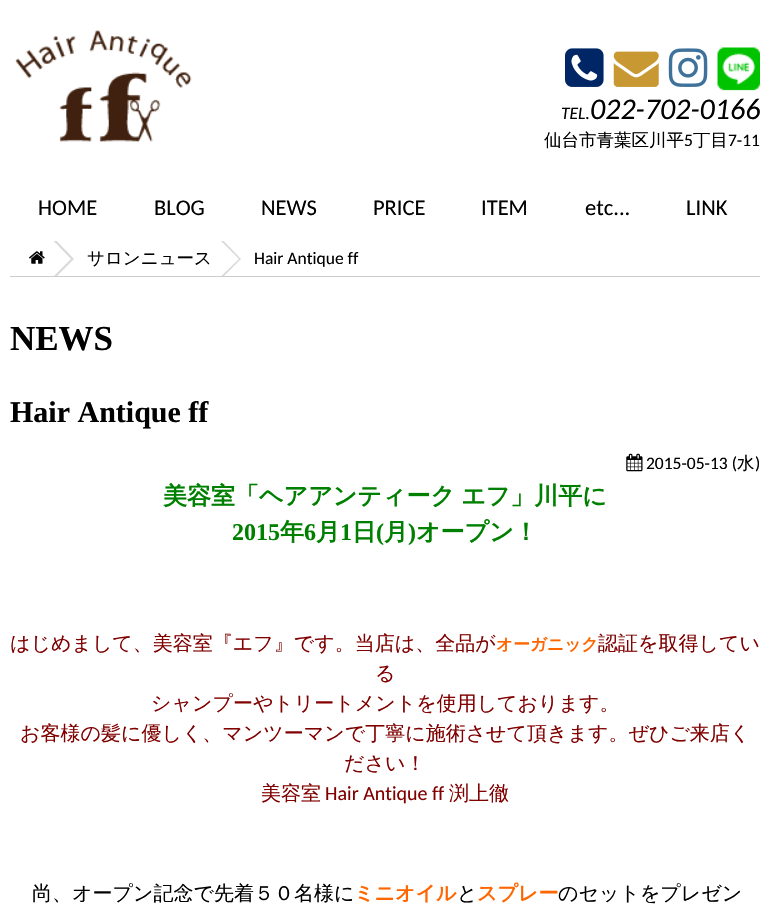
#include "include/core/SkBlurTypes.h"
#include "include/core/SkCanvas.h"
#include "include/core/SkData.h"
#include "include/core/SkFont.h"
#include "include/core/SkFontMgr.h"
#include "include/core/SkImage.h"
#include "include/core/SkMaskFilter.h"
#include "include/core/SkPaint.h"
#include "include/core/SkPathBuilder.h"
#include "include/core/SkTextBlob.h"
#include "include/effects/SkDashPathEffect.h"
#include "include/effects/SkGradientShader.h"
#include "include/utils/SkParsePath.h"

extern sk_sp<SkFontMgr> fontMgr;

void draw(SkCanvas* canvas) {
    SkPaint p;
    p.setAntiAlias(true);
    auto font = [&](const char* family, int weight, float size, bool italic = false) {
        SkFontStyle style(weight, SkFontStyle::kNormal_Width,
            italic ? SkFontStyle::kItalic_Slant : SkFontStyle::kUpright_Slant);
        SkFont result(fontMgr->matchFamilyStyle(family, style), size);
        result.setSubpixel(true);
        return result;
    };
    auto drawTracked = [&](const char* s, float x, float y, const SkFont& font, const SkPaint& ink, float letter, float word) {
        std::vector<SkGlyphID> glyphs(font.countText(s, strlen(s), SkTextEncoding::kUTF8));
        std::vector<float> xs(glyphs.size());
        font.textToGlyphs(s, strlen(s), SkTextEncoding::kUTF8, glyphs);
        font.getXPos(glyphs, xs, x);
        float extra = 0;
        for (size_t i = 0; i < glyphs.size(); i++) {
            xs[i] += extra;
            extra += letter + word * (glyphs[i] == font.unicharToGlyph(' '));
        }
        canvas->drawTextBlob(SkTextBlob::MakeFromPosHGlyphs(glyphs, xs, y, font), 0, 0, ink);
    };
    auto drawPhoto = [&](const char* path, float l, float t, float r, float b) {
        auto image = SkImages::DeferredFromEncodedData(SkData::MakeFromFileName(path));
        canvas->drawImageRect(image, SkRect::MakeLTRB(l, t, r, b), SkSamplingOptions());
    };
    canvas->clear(0xFFFFFFFF);
    drawPhoto("media/1.png", 15, 30, 192, 142);
    drawPhoto("media/2.png", 565, 48, 604, 87);
    drawPhoto("media/3.png", 613, 51, 659, 87);
    drawPhoto("media/4.png", 668, 48, 708, 87);
    drawPhoto("media/5.png", 717, 47, 760, 91);
    auto font1 = font("Carlito", 400, 17.5f, true);
    p.setColor(0xFF000000);
    canvas->drawString("TEL.", 561, 119, font1, p);
    auto font2 = font("Carlito", 400, 30, true);
    canvas->drawString("022-702-0166", 590, 119, font2, p);
    auto font3 = font("WenQuanYi Zen Hei", 500, 17.5f);
    canvas->drawString("仙台市青葉区川平", 544, 146, font3, p);
    auto font4 = font("Carlito", 400, 17.5f);
    canvas->drawString("5", 684, 146, font4, p);
    canvas->drawString("丁目", 693, 146, font3, p);
    canvas->drawString("7-11", 728, 146, font4, p);
    auto font5 = font("Carlito", 400, 22.5f);
    {
        const struct { const char* s; float x, y; } items[] = {
            {"HOME", 38, 215},
            {"BLOG", 154, 215},
            {"NEWS", 261, 215},
            {"PRICE", 373, 215},
            {"ITEM", 481, 215},
            {"etc...", 585, 215},
            {"LINK", 686, 215},
        };
        for (auto [s, x, y] : items) {
            canvas->drawString(s, x, y, font5, p);
        }
    }
    p.setColor(0xFFCCCCCC);
    canvas->drawRect(SkRect::MakeLTRB(10, 276, 760, 277), p);
    canvas->save();
    canvas->clipRect(SkRect::MakeLTRB(10, 241, 760, 276));
    p.setColor(0xFFD9D9D9);
    canvas->drawPath(SkPathBuilder().moveTo(48, 285).lineTo(48, 232).lineTo(74, 259).close().detach(), p);
    p.setColor(0xFFFFFFFF);
    canvas->drawPath(SkPathBuilder().moveTo(45, 285).lineTo(45, 232).lineTo(71, 259).close().detach(), p);
    canvas->restore();
    drawPhoto("media/6.png", 29, 251, 45, 264);
    canvas->save();
    canvas->clipRect(SkRect::MakeLTRB(10, 241, 760, 276));
    p.setColor(0xFFD9D9D9);
    canvas->drawPath(SkPathBuilder().moveTo(215, 285).lineTo(215, 232).lineTo(241, 259).close().detach(), p);
    p.setColor(0xFFFFFFFF);
    canvas->drawPath(SkPathBuilder().moveTo(212, 285).lineTo(212, 232).lineTo(239, 259).close().detach(), p);
    canvas->restore();
    p.setColor(0xFF000000);
    canvas->drawString("サロンニュース", 87, 264, font3, p);
    canvas->drawString("Hair Antique ff", 254, 264, font4, p);
    auto font6 = font("Liberation Serif", 700, 35);
    canvas->drawString("NEWS", 10, 350, font6, p);
    auto font7 = font("Liberation Serif", 700, 30);
    canvas->drawString("Hair Antique ff", 10, 422, font7, p);
    drawPhoto("media/7.png", 626, 453, 643, 472);
    canvas->drawString("2015-05-13 (", 646, 469, font4, p);
    canvas->drawString("水", 737, 469, font3, p);
    canvas->drawString(")", 755, 469, font4, p);
    auto font8 = font("WenQuanYi Zen Hei", 700, 24);
    p.setColor(0xFF008000);
    drawTracked("美容室「ヘアアンティーク エフ」川平に", 163, 504, font8, p, 0, -1);
    auto font9 = font("Liberation Serif", 700, 24);
    canvas->drawString("2015", 232, 540, font9, p);
    canvas->drawString("年", 280, 540, font8, p);
    canvas->drawString("6", 304, 540, font9, p);
    canvas->drawString("月", 316, 540, font8, p);
    canvas->drawString("1", 340, 540, font9, p);
    canvas->drawString("日", 352, 540, font8, p);
    canvas->drawString("(", 376, 540, font9, p);
    canvas->drawString("月", 384, 540, font8, p);
    canvas->drawString(")", 408, 540, font9, p);
    canvas->drawString("オープン！", 416, 540, font8, p);
    auto font10 = font("WenQuanYi Zen Hei", 500, 20);
    p.setColor(0xFF800000);
    canvas->drawString("はじめまして、美容室『エフ』です。当店は、全品が", 10, 650, font10, p);
    auto font11 = font("WenQuanYi Zen Hei", 700, 16.75f);
    p.setColor(0xFFFF6600);
    canvas->drawString("オーガニック", 496, 650, font11, p);
    p.setColor(0xFF800000);
    {
        const struct { const char* s; float x, y; } items[] = {
            {"認証を取得してい", 598, 650},
            {"る", 375, 680},
            {"シャンプーやトリートメントを使用しております。", 151, 710},
            {"お客様の髪に優しく、マンツーマンで丁寧に施術させて頂きます。ぜひご来店く", 20, 740},
            {"ださい！", 344, 770},
            {"美容室", 261, 800},
        };
        for (auto [s, x, y] : items) {
            canvas->drawString(s, x, y, font10, p);
        }
    }
    auto font12 = font("Carlito", 400, 20);
    canvas->drawString("Hair Antique ff", 325, 800, font12, p);
    canvas->drawString("渕上徹", 449, 800, font10, p);
    p.setColor(0xFF000000);
    canvas->drawString("尚、オープン記念で先着５０名様に", 32, 900, font10, p);
    auto font13 = font("WenQuanYi Zen Hei", 700, 20);
    p.setColor(0xFFFF6600);
    canvas->drawString("ミニオイル", 354, 900, font13, p);
    p.setColor(0xFF000000);
    canvas->drawString("と", 457, 900, font10, p);
    p.setColor(0xFFFF6600);
    canvas->drawString("スプレー", 477, 900, font13, p);
    p.setColor(0xFF000000);
    canvas->drawString("のセットをプレゼン", 558, 900, font10, p);
}
